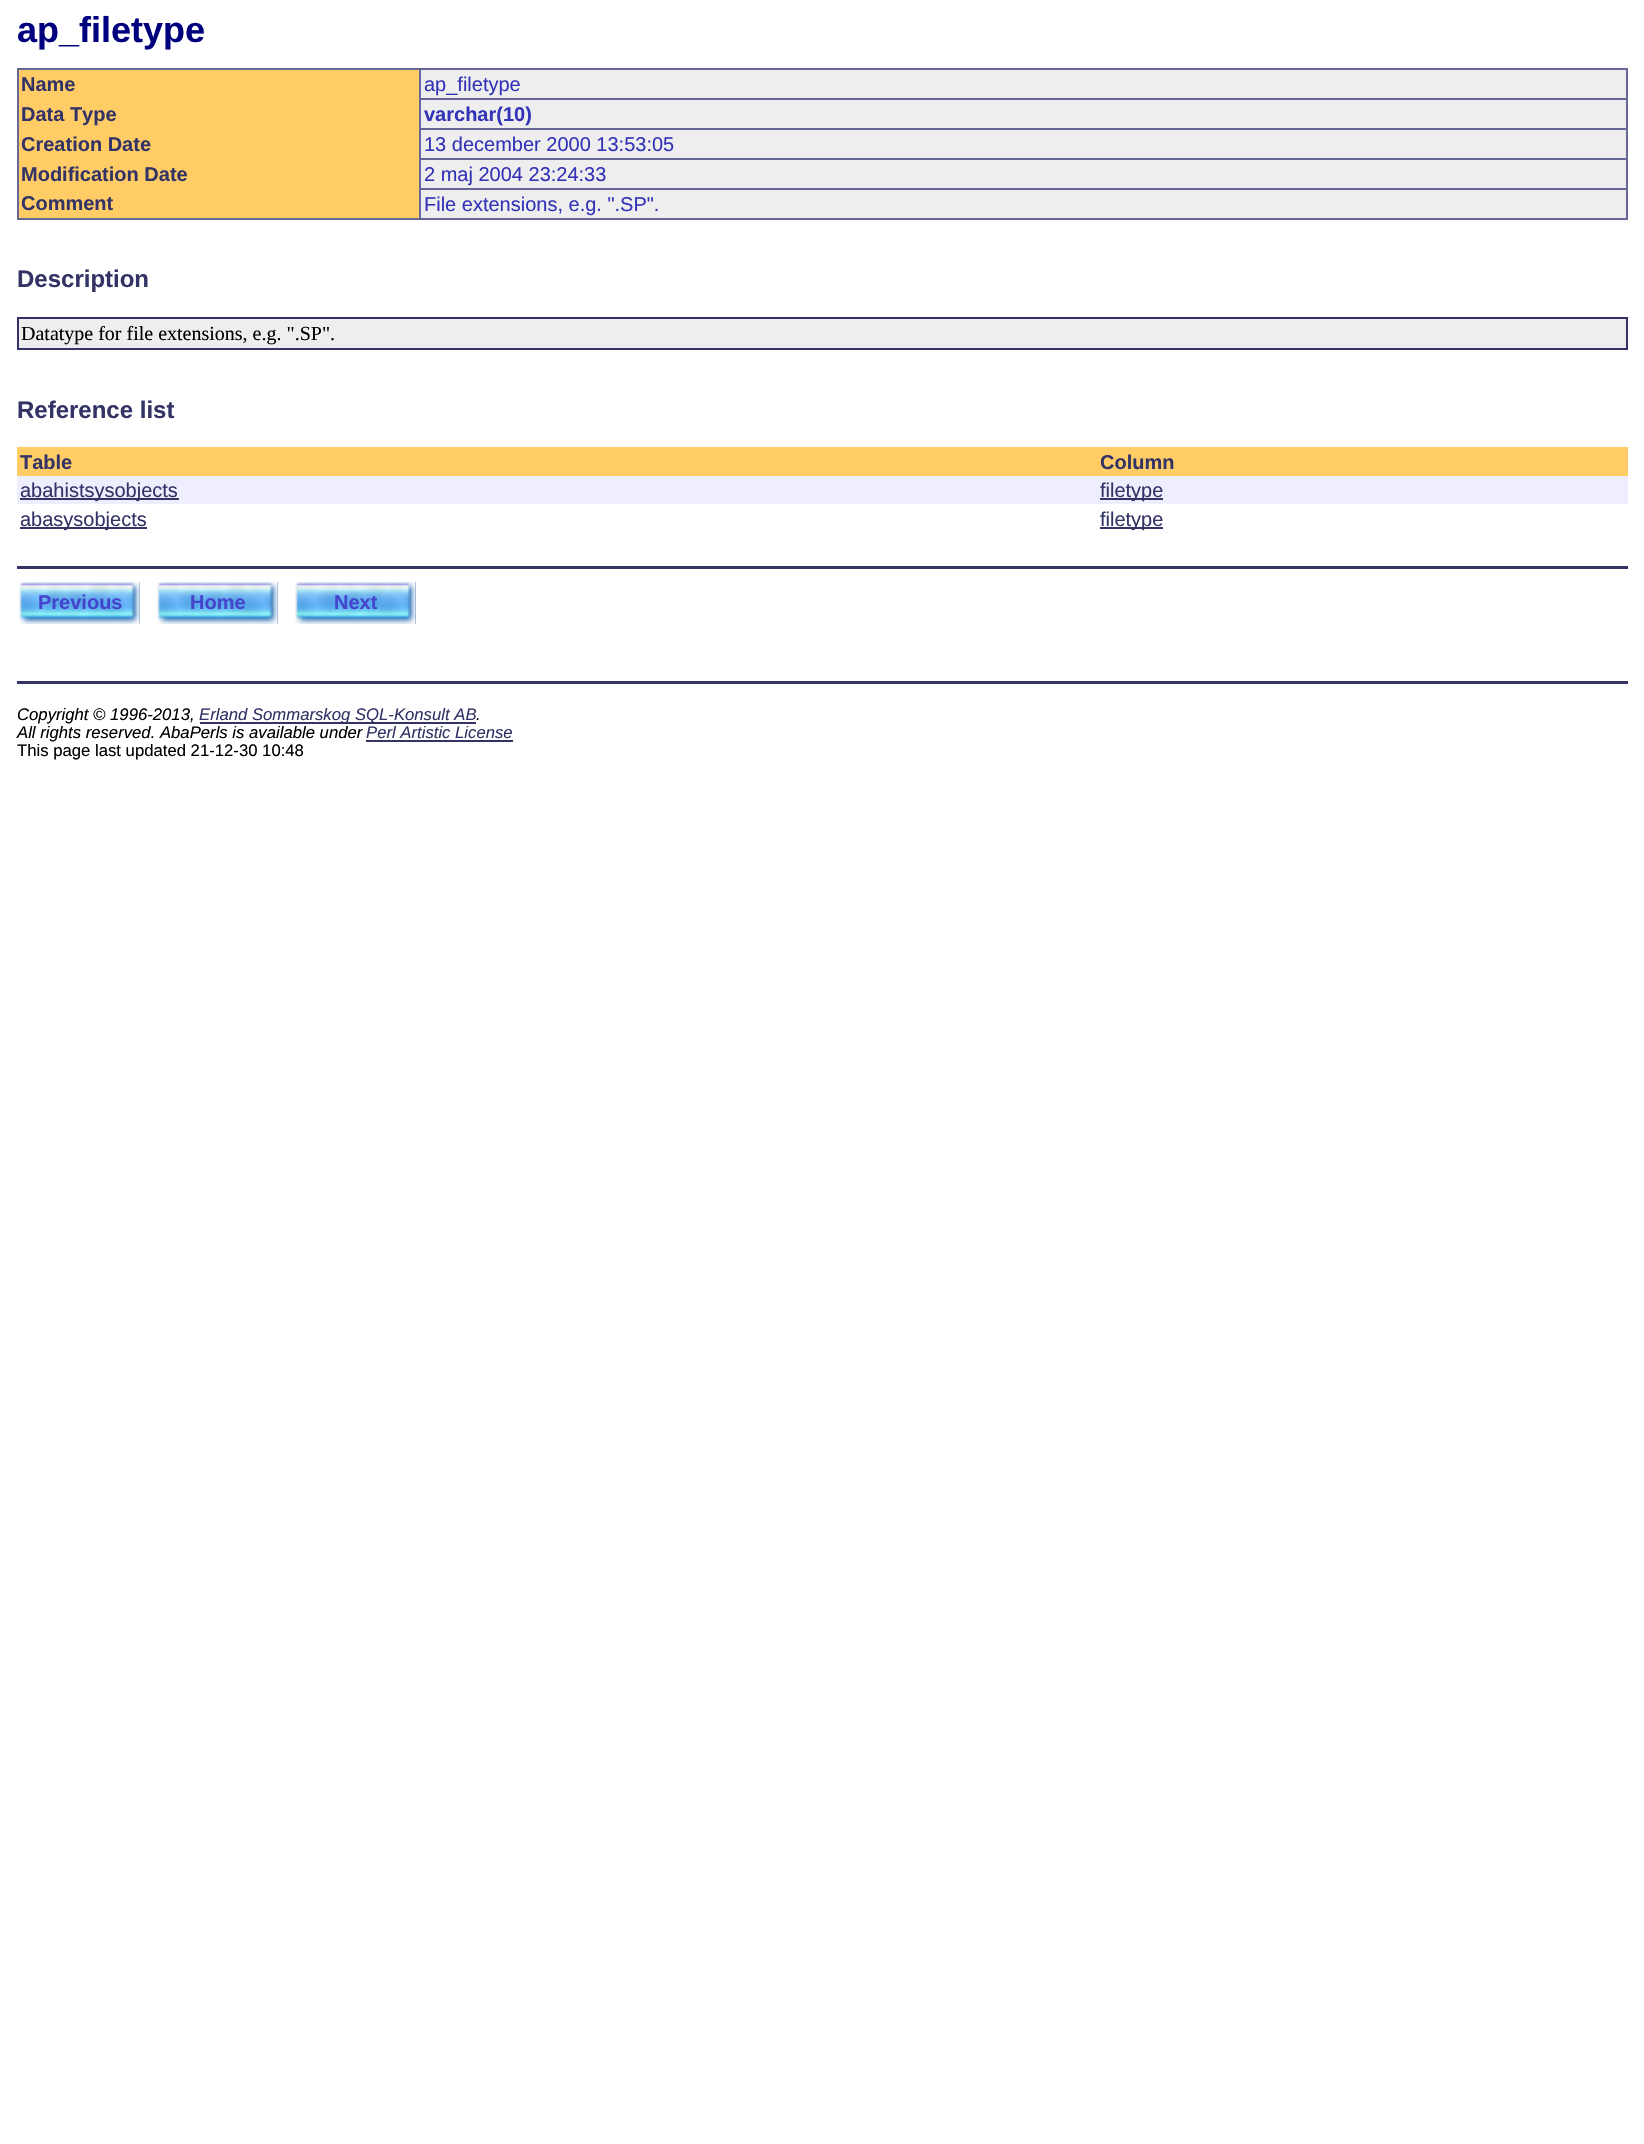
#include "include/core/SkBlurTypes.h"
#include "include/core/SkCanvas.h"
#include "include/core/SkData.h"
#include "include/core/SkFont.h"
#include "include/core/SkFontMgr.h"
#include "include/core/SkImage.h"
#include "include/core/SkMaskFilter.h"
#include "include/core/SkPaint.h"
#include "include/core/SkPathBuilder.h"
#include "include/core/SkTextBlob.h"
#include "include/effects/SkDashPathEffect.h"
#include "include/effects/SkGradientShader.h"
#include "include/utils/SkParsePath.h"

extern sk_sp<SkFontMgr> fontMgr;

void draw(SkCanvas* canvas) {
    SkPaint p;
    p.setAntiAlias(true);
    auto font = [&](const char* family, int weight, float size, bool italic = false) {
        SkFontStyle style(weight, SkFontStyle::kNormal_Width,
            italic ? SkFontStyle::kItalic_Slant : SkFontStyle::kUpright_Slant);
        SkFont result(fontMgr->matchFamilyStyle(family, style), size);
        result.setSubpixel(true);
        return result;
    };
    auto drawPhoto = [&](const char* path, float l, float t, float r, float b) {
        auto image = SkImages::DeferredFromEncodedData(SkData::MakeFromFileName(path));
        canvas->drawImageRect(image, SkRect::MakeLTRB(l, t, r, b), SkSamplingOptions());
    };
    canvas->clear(0xFFFFFFFF);
    auto font1 = font("Liberation Sans", 700, 36);
    p.setColor(0xFF00007F);
    canvas->drawString("ap_filetype", 17, 42, font1, p);
    {
        const struct { float l, t, r, b; SkColor color; } items[] = {
            {17, 68, 1628, 70, 0xFF666699},
            {1626, 68, 1628, 219, 0xFF666699},
            {17, 218, 1628, 220, 0xFF666699},
            {17, 68, 19, 219, 0xFF666699},
            {19, 70, 419, 218, 0xFFFFCC66},
        };
        for (auto [l, t, r, b, color] : items) {
            p.setColor(color);
            canvas->drawRect(SkRect::MakeLTRB(l, t, r, b), p);
        }
    }
    auto font2 = font("Liberation Sans", 700, 20);
    p.setColor(0xFF333366);
    canvas->drawString("Name", 21, 91, font2, p);
    p.setColor(0xFFEEEEEE);
    canvas->drawRect(SkRect::MakeLTRB(421, 70, 1626, 98), p);
    auto font3 = font("Liberation Sans", 400, 20);
    p.setColor(0xFF3333B8);
    canvas->drawString("ap_filetype", 424, 91, font3, p);
    p.setColor(0xFF333366);
    canvas->drawString("Data Type", 21, 121, font2, p);
    {
        const struct { float l, t, r, b; SkColor color; } items[] = {
            {421, 100, 1626, 128, 0xFFEEEEEE},
            {419, 98, 1628, 100, 0xFF666699},
            {419, 128, 1628, 130, 0xFF666699},
            {419, 158, 1628, 160, 0xFF666699},
            {419, 188, 1628, 190, 0xFF666699},
            {419, 188, 421, 219, 0xFF666699},
            {419, 158, 421, 189, 0xFF666699},
            {419, 128, 421, 159, 0xFF666699},
            {419, 68, 421, 129, 0xFF666699},
        };
        for (auto [l, t, r, b, color] : items) {
            p.setColor(color);
            canvas->drawRect(SkRect::MakeLTRB(l, t, r, b), p);
        }
    }
    p.setColor(0xFF3333B8);
    canvas->drawString("varchar(10)", 424, 121, font2, p);
    p.setColor(0xFF333366);
    canvas->drawString("Creation Date", 21, 151, font2, p);
    p.setColor(0xFFEEEEEE);
    canvas->drawRect(SkRect::MakeLTRB(421, 130, 1626, 158), p);
    p.setColor(0xFF3333B8);
    canvas->drawString("13 december 2000 13:53:05", 424, 151, font3, p);
    p.setColor(0xFF333366);
    canvas->drawString("Modification Date", 21, 181, font2, p);
    p.setColor(0xFFEEEEEE);
    canvas->drawRect(SkRect::MakeLTRB(421, 160, 1626, 188), p);
    p.setColor(0xFF3333B8);
    canvas->drawString("2 maj 2004 23:24:33", 424, 181, font3, p);
    p.setColor(0xFF333366);
    canvas->drawString("Comment", 21, 210, font2, p);
    p.setColor(0xFFEEEEEE);
    canvas->drawRect(SkRect::MakeLTRB(421, 190, 1626, 218), p);
    p.setColor(0xFF3333B8);
    canvas->drawString("File extensions, e.g. \".SP\".", 424, 211, font3, p);
    auto font4 = font("Liberation Sans", 700, 24);
    p.setColor(0xFF333366);
    canvas->drawString("Description", 17, 287, font4, p);
    {
        const struct { float l, t, r, b; SkColor color; } items[] = {
            {19, 319, 1626, 348, 0xFFEEEEEE},
            {17, 317, 1628, 319, 0xFF333366},
            {1626, 317, 1628, 350, 0xFF333366},
            {17, 348, 1628, 350, 0xFF333366},
            {17, 317, 19, 350, 0xFF333366},
        };
        for (auto [l, t, r, b, color] : items) {
            p.setColor(color);
            canvas->drawRect(SkRect::MakeLTRB(l, t, r, b), p);
        }
    }
    auto font5 = font("Liberation Serif", 400, 20);
    p.setColor(0xFF000000);
    canvas->drawString("Datatype for file extensions, e.g. \".SP\".", 21, 340, font5, p);
    p.setColor(0xFF333366);
    canvas->drawString("Reference list", 17, 418, font4, p);
    p.setColor(0xFFFFCC66);
    canvas->drawRect(SkRect::MakeLTRB(17, 447, 1628, 476), p);
    p.setColor(0xFF333366);
    canvas->drawString("Table", 20, 469, font2, p);
    canvas->drawString("Column", 1100, 469, font2, p);
    p.setColor(0xFFEEEEFF);
    canvas->drawRect(SkRect::MakeLTRB(17, 476, 1628, 504), p);
    p.setColor(0xFF333366);
    canvas->drawRect(SkRect::MakeLTRB(20, 498, 179, 500), p);
    canvas->drawString("abahistsysobjects", 20, 497, font3, p);
    canvas->drawRect(SkRect::MakeLTRB(1100, 498, 1163, 500), p);
    canvas->drawString("filetype", 1100, 497, font3, p);
    canvas->drawRect(SkRect::MakeLTRB(20, 527, 147, 529), p);
    canvas->drawString("abasysobjects", 20, 526, font3, p);
    canvas->drawRect(SkRect::MakeLTRB(1100, 527, 1163, 529), p);
    canvas->drawString("filetype", 1100, 526, font3, p);
    canvas->drawRect(SkRect::MakeLTRB(17, 566, 1628, 569), p);
    p.setColor(0xFF6F90C0);
    canvas->drawRect(SkRect::MakeLTRB(139, 582, 140, 624), p);
    drawPhoto("media/1.png", 19, 582, 140, 624);
    p.setColor(0xFF4444CC);
    canvas->drawString("Previous", 38, 609, font2, p);
    p.setColor(0xFF6F90C0);
    canvas->drawRect(SkRect::MakeLTRB(277, 582, 278, 624), p);
    drawPhoto("media/1.png", 157, 582, 278, 624);
    p.setColor(0xFF4444CC);
    canvas->drawString("Home", 190, 609, font2, p);
    p.setColor(0xFF6F90C0);
    canvas->drawRect(SkRect::MakeLTRB(415, 582, 416, 624), p);
    drawPhoto("media/2.png", 295, 582, 416, 624);
    p.setColor(0xFF4444CC);
    canvas->drawString("Next", 334, 609, font2, p);
    p.setColor(0xFF333366);
    canvas->drawRect(SkRect::MakeLTRB(17, 681, 1628, 684), p);
    auto font6 = font("Liberation Sans", 400, 16.7f, true);
    p.setColor(0xFF000000);
    canvas->drawString("Copyright © 1996-2013,", 17, 720, font6, p);
    p.setColor(0xFF333366);
    canvas->drawRect(SkRect::MakeLTRB(200, 722, 476, 724), p);
    canvas->drawString("Erland Sommarskog SQL-Konsult AB", 199, 720, font6, p);
    p.setColor(0xFF000000);
    canvas->drawString(".", 476, 720, font6, p);
    canvas->drawString("All rights reserved. AbaPerls is available under", 17, 738, font6, p);
    p.setColor(0xFF333366);
    canvas->drawRect(SkRect::MakeLTRB(366, 740, 513, 742), p);
    canvas->drawString("Perl Artistic License", 366, 738, font6, p);
    auto font7 = font("Liberation Sans", 400, 16.7f);
    p.setColor(0xFF000000);
    canvas->drawString("This page last updated 21-12-30 10:48", 17, 756, font7, p);
}
